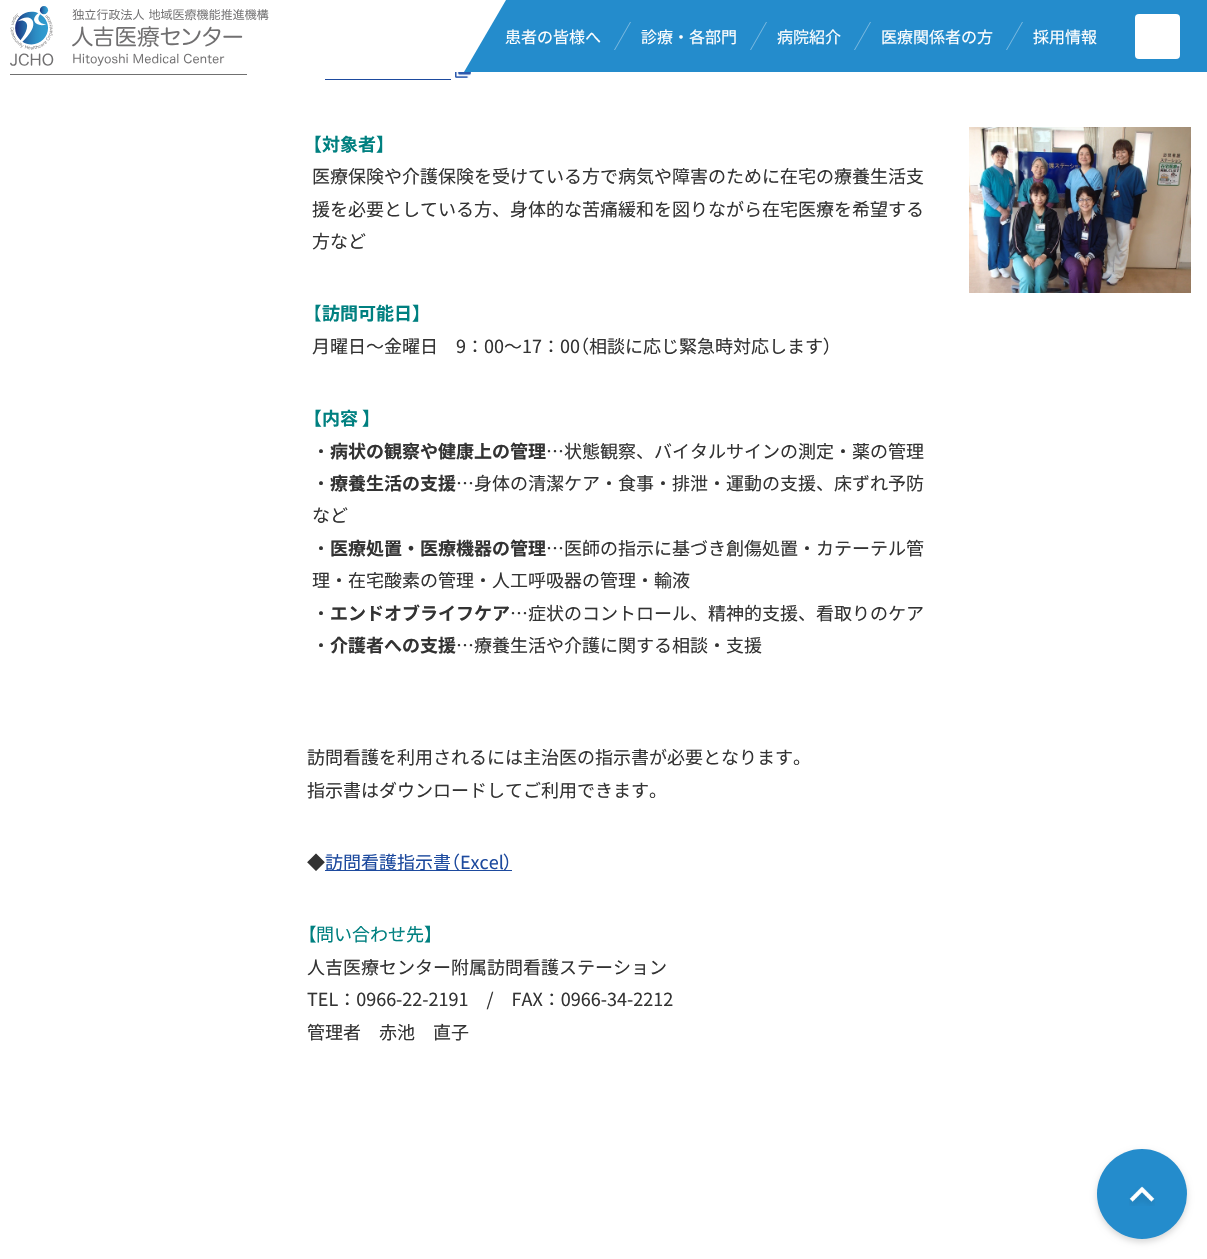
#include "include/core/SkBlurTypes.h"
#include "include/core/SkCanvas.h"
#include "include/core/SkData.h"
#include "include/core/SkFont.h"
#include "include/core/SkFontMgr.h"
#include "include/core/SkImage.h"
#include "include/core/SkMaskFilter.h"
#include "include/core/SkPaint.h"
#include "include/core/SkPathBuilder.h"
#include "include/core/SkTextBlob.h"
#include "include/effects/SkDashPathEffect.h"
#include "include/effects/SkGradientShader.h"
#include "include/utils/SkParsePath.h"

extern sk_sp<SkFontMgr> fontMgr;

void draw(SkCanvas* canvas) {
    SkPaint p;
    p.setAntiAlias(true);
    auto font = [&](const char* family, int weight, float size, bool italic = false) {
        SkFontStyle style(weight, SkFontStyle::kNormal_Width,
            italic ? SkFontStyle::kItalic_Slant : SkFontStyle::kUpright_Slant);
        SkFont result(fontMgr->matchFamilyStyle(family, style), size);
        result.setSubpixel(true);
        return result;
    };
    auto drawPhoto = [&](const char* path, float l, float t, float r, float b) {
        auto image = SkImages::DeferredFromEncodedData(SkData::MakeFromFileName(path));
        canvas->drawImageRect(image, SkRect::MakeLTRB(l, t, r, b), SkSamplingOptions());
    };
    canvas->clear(0xFFFFFFFF);
    drawPhoto("media/1.png", 10, 6, 269, 66);
    p.setColor(0xFF248CCC);
    canvas->drawRect(SkRect::MakeLTRB(600, 0, 1207, 72), p);
    p.setColor(0xFFFFFFFF);
    canvas->drawRoundRect(SkRect::MakeLTRB(1135, 14, 1180, 59), 4, 4, p);
    p.setColor(0xFF248CCC);
    canvas->drawPath(SkPathBuilder().moveTo(506, 0).lineTo(642, 0).lineTo(600, 72).lineTo(464, 72).close().detach(), p);
    auto font1 = font("Noto Sans JP", 400, 16);
    p.setColor(0xFFFFFFFF);
    canvas->drawString("患者の皆様へ", 505, 43, font1, p);
    p.setColor(0xFF7CBAE0);
    canvas->drawPath(SkPathBuilder().moveTo(630, 22).lineTo(631, 22).lineTo(615, 50).lineTo(614, 50).close().detach(), p);
    p.setColor(0xFFFFFFFF);
    canvas->drawString("診療・各部門", 641, 43, font1, p);
    p.setColor(0xFF7CBAE0);
    canvas->drawPath(SkPathBuilder().moveTo(766, 22).lineTo(767, 22).lineTo(751, 50).lineTo(750, 50).close().detach(), p);
    p.setColor(0xFFFFFFFF);
    canvas->drawString("病院紹介", 777, 43, font1, p);
    p.setColor(0xFF7CBAE0);
    canvas->drawPath(SkPathBuilder().moveTo(870, 22).lineTo(871, 22).lineTo(855, 50).lineTo(854, 50).close().detach(), p);
    p.setColor(0xFFFFFFFF);
    canvas->drawString("医療関係者の方", 881, 43, font1, p);
    p.setColor(0xFF7CBAE0);
    canvas->drawPath(SkPathBuilder().moveTo(1022, 22).lineTo(1023, 22).lineTo(1007, 50).lineTo(1006, 50).close().detach(), p);
    p.setColor(0xFFFFFFFF);
    canvas->drawString("採用情報", 1033, 43, font1, p);
    p.setColor(0xFF707070);
    canvas->drawRect(SkRect::MakeLTRB(10, 74, 247, 75), p);
    drawPhoto("media/2.png", 455, 72, 471, 78);
    p.setColor(0xFF1D4A9E);
    canvas->drawRect(SkRect::MakeLTRB(325, 79, 451, 80), p);
    auto font2 = font("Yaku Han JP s", 700, 18);
    p.setColor(0xFF008080);
    canvas->drawString("【", 312, 151, font2, p);
    auto font3 = font("Noto Sans JP", 700, 18);
    canvas->drawString("対象者", 322, 151, font3, p);
    canvas->drawString("】", 376, 151, font2, p);
    auto font4 = font("Noto Sans JP", 400, 18);
    p.setColor(0xFF333333);
    {
        const struct { const char* s; float x, y; } items[] = {
            {"医療保険や介護保険を受けている方で病気や障害のために在宅の療養生活支", 312, 183},
            {"援を必要としている方、身体的な苦痛緩和を図りながら在宅医療を希望する", 312, 216},
            {"方など", 312, 248},
        };
        for (auto [s, x, y] : items) {
            canvas->drawString(s, x, y, font4, p);
        }
    }
    auto font5 = font("Yaku Han JP s", 400, 18);
    p.setColor(0xFF008080);
    canvas->drawString("【", 312, 320, font5, p);
    canvas->drawString("訪問可能日", 322, 320, font3, p);
    canvas->drawString("】", 412, 320, font2, p);
    p.setColor(0xFF333333);
    canvas->drawString("月曜日～金曜日　9：00～17：00", 312, 353, font4, p);
    canvas->drawString("（", 580, 353, font5, p);
    canvas->drawString("相談に応じ緊急時対応します", 589, 353, font4, p);
    canvas->drawString("）", 823, 353, font5, p);
    p.setColor(0xFF008080);
    canvas->drawString("【", 312, 425, font2, p);
    canvas->drawString("内容", 322, 425, font3, p);
    canvas->drawString("】", 362, 425, font2, p);
    p.setColor(0xFF333333);
    canvas->drawString("・", 312, 458, font4, p);
    canvas->drawString("病状の観察や健康上の管理", 330, 458, font3, p);
    canvas->drawString("…状態観察、バイタルサインの測定・薬の管理", 546, 458, font4, p);
    canvas->drawString("・", 312, 490, font4, p);
    canvas->drawString("療養生活の支援", 330, 490, font3, p);
    {
        const struct { const char* s; float x, y; } items[] = {
            {"…身体の清潔ケア・食事・排泄・運動の支援、床ずれ予防", 456, 490},
            {"など", 312, 522},
            {"・", 312, 555},
        };
        for (auto [s, x, y] : items) {
            canvas->drawString(s, x, y, font4, p);
        }
    }
    canvas->drawString("医療処置・医療機器の管理", 330, 555, font3, p);
    {
        const struct { const char* s; float x, y; } items[] = {
            {"…医師の指示に基づき創傷処置・カテーテル管", 546, 555},
            {"理・在宅酸素の管理・人工呼吸器の管理・輸液", 312, 587},
            {"・", 312, 620},
        };
        for (auto [s, x, y] : items) {
            canvas->drawString(s, x, y, font4, p);
        }
    }
    canvas->drawString("エンドオブライフケア", 330, 620, font3, p);
    canvas->drawString("…症状のコントロール、精神的支援、看取りのケア", 510, 620, font4, p);
    canvas->drawString("・", 312, 652, font4, p);
    canvas->drawString("介護者への支援", 330, 652, font3, p);
    canvas->drawString("…療養生活や介護に関する相談・支援", 456, 652, font4, p);
    drawPhoto("media/3.png", 969, 127, 1191, 293);
    {
        const struct { const char* s; float x, y; } items[] = {
            {"訪問看護を利用されるには主治医の指示書が必要となります。", 307, 764},
            {"指示書はダウンロードしてご利用できます。", 307, 797},
            {"◆", 307, 869},
        };
        for (auto [s, x, y] : items) {
            canvas->drawString(s, x, y, font4, p);
        }
    }
    p.setColor(0xFF1D4A9E);
    canvas->drawRect(SkRect::MakeLTRB(325, 870, 512, 871), p);
    canvas->drawString("訪問看護指示書", 325, 869, font4, p);
    canvas->drawString("（", 451, 869, font5, p);
    canvas->drawString("Excel", 460, 869, font4, p);
    canvas->drawString("）", 503, 869, font5, p);
    p.setColor(0xFF008080);
    canvas->drawString("【", 307, 941, font5, p);
    canvas->drawString("問い合わせ先", 316, 941, font4, p);
    canvas->drawString("】", 424, 941, font5, p);
    p.setColor(0xFF333333);
    {
        const struct { const char* s; float x, y; } items[] = {
            {"人吉医療センター附属訪問看護ステーション", 307, 974},
            {"TEL：0966-22-2191　/　FAX：0966-34-2212", 307, 1006},
            {"管理者　赤池　直子", 307, 1039},
        };
        for (auto [s, x, y] : items) {
            canvas->drawString(s, x, y, font4, p);
        }
    }
    p.setColor(0x29000000);
    p.setMaskFilter(SkMaskFilter::MakeBlur(kNormal_SkBlurStyle, 3));
    canvas->drawRoundRect(SkRect::MakeLTRB(1097, 1152, 1187, 1242), 45, 45, p);
    p.setMaskFilter(nullptr);
    p.setColor(0xFF248CCC);
    canvas->drawCircle(1142, 1194, 45, p);
    drawPhoto("media/4.png", 1129, 1186, 1155, 1206);
}
